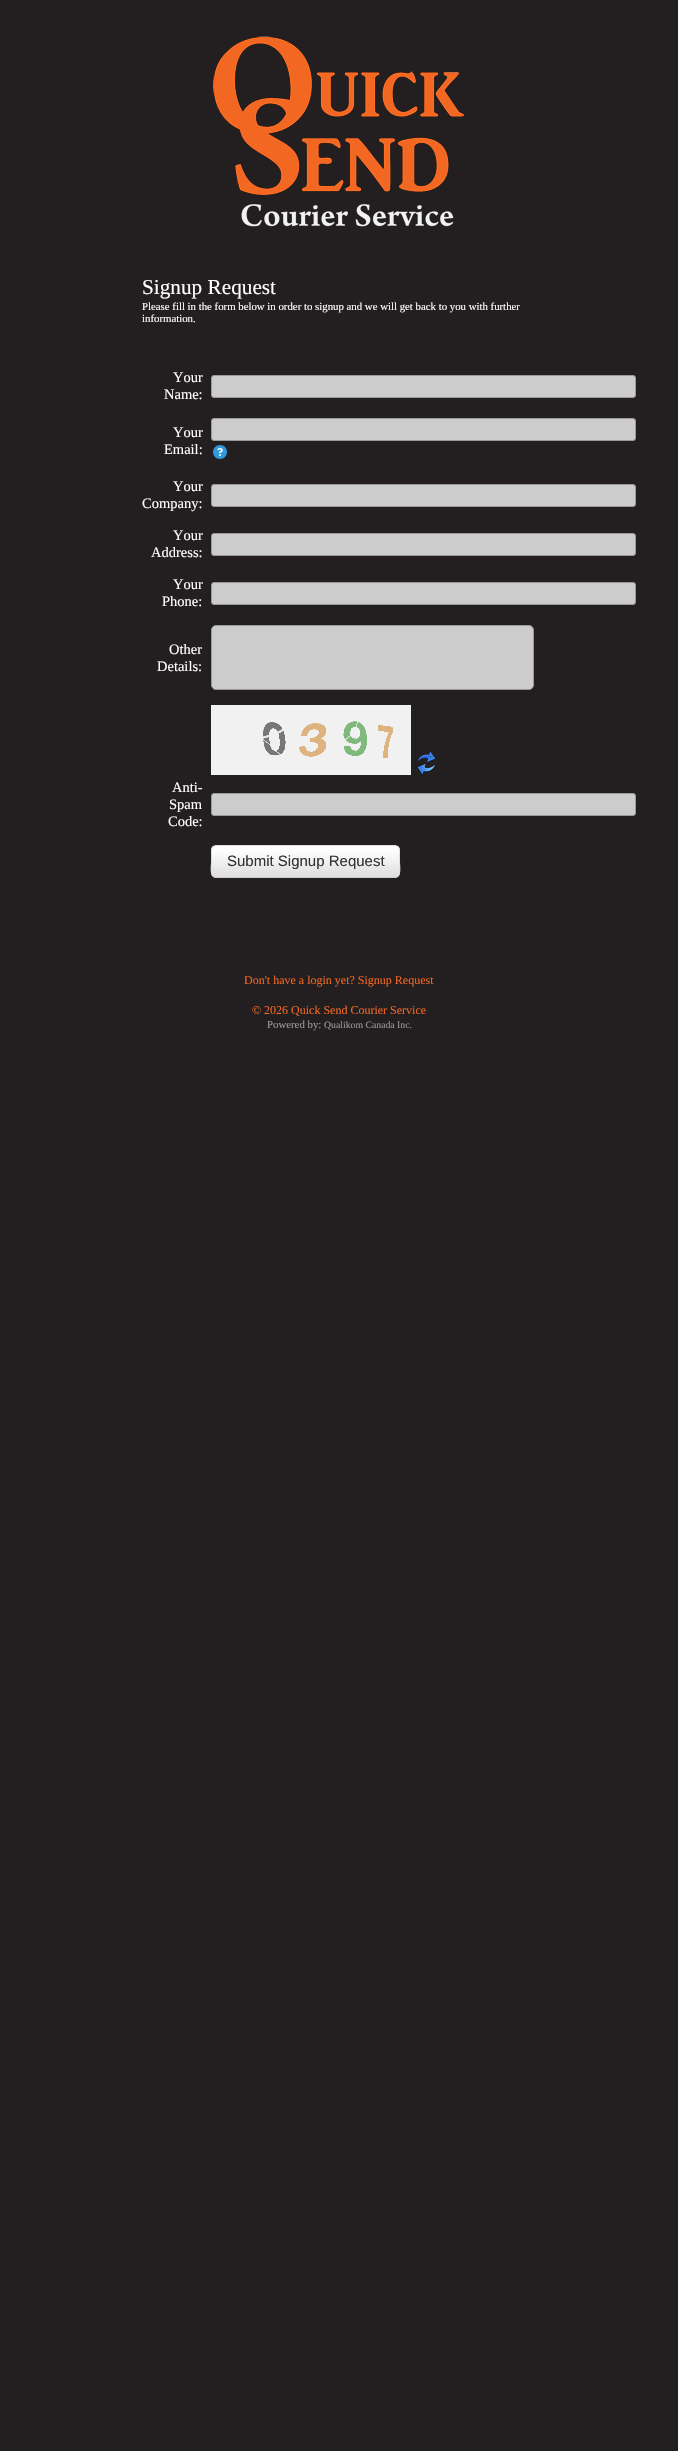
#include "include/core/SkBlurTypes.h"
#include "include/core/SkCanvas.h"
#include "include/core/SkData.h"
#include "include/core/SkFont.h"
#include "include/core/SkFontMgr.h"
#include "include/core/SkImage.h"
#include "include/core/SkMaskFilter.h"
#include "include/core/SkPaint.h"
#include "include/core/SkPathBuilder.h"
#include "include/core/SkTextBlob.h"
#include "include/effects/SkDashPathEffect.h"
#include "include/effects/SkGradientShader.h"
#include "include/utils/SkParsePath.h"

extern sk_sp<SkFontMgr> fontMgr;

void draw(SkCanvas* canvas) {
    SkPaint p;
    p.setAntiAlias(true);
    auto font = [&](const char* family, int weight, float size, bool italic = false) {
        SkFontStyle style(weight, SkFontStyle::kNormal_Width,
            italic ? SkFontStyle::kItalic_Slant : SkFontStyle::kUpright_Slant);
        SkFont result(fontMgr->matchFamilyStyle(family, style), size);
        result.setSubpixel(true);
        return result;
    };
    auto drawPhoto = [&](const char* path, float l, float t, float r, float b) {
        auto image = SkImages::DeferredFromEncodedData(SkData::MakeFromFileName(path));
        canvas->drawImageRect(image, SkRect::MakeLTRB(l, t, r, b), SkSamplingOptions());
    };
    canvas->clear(0xFF231F20);
    drawPhoto("media/1.png", 213, 36, 464, 227);
    auto font1 = font("Liberation Serif", 400, 21.25f);
    p.setColor(0xFFFFFFFF);
    canvas->drawString("Signup Request", 142, 294, font1, p);
    auto font2 = font("Liberation Serif", 400, 10.8f);
    canvas->drawString("Please fill in the form below in order to signup and we will get back to you with further", 142, 310, font2, p);
    canvas->drawString("information.", 142, 322, font2, p);
    auto font3 = font("Liberation Serif", 400, 14.5f);
    canvas->drawString("Your", 173, 382, font3, p);
    canvas->drawString("Name:", 164, 399, font3, p);
    p.setColor(0xFFCCCCCC);
    canvas->drawRoundRect(SkRect::MakeLTRB(211.5f, 375.5f, 635.5f, 397.5f), 2.5f, 2.5f, p);
    p.setStyle(SkPaint::kStroke_Style);
    p.setStrokeWidth(1);
    p.setColor(0xFF999999);
    canvas->drawRoundRect(SkRect::MakeLTRB(211.5f, 375.5f, 635.5f, 397.5f), 2.5f, 2.5f, p);
    p.setStyle(SkPaint::kFill_Style);
    p.setColor(0xFFFFFFFF);
    canvas->drawString("Your", 173, 437, font3, p);
    canvas->drawString("Email:", 164, 454, font3, p);
    p.setColor(0xFFCCCCCC);
    canvas->drawRoundRect(SkRect::MakeLTRB(211.5f, 418.5f, 635.5f, 440.5f), 2.5f, 2.5f, p);
    p.setStyle(SkPaint::kStroke_Style);
    p.setColor(0xFF999999);
    canvas->drawRoundRect(SkRect::MakeLTRB(211.5f, 418.5f, 635.5f, 440.5f), 2.5f, 2.5f, p);
    drawPhoto("media/2.png", 213, 445, 227, 459);
    p.setStyle(SkPaint::kFill_Style);
    p.setColor(0xFFFFFFFF);
    canvas->drawString("Your", 173, 491, font3, p);
    canvas->drawString("Company:", 142, 508, font3, p);
    p.setColor(0xFFCCCCCC);
    canvas->drawRoundRect(SkRect::MakeLTRB(211.5f, 484.5f, 635.5f, 506.5f), 2.5f, 2.5f, p);
    p.setStyle(SkPaint::kStroke_Style);
    p.setColor(0xFF999999);
    canvas->drawRoundRect(SkRect::MakeLTRB(211.5f, 484.5f, 635.5f, 506.5f), 2.5f, 2.5f, p);
    p.setStyle(SkPaint::kFill_Style);
    p.setColor(0xFFFFFFFF);
    canvas->drawString("Your", 173, 540, font3, p);
    canvas->drawString("Address:", 151, 557, font3, p);
    p.setColor(0xFFCCCCCC);
    canvas->drawRoundRect(SkRect::MakeLTRB(211.5f, 533.5f, 635.5f, 555.5f), 2.5f, 2.5f, p);
    p.setStyle(SkPaint::kStroke_Style);
    p.setColor(0xFF999999);
    canvas->drawRoundRect(SkRect::MakeLTRB(211.5f, 533.5f, 635.5f, 555.5f), 2.5f, 2.5f, p);
    p.setStyle(SkPaint::kFill_Style);
    p.setColor(0xFFFFFFFF);
    canvas->drawString("Your", 173, 589, font3, p);
    canvas->drawString("Phone:", 162, 606, font3, p);
    p.setColor(0xFFCCCCCC);
    canvas->drawRoundRect(SkRect::MakeLTRB(211.5f, 582.5f, 635.5f, 604.5f), 2.5f, 2.5f, p);
    p.setStyle(SkPaint::kStroke_Style);
    p.setColor(0xFF999999);
    canvas->drawRoundRect(SkRect::MakeLTRB(211.5f, 582.5f, 635.5f, 604.5f), 2.5f, 2.5f, p);
    p.setStyle(SkPaint::kFill_Style);
    p.setColor(0xFFFFFFFF);
    canvas->drawString("Other", 169, 654, font3, p);
    canvas->drawString("Details:", 157, 671, font3, p);
    p.setColor(0xFFCCCCCC);
    canvas->drawRoundRect(SkRect::MakeLTRB(211.5f, 625.5f, 533.5f, 689.5f), 4.5f, 4.5f, p);
    p.setStyle(SkPaint::kStroke_Style);
    p.setColor(0xFF999999);
    canvas->drawRoundRect(SkRect::MakeLTRB(211.5f, 625.5f, 533.5f, 689.5f), 4.5f, 4.5f, p);
    drawPhoto("media/3.png", 211, 705, 411, 775);
    drawPhoto("media/4.png", 417, 751, 436, 775);
    p.setStyle(SkPaint::kFill_Style);
    p.setColor(0xFFFFFFFF);
    {
        const struct { const char* s; float x, y; } items[] = {
            {"Anti-", 172, 792},
            {"Spam", 169, 809},
            {"Code:", 168, 826},
        };
        for (auto [s, x, y] : items) {
            canvas->drawString(s, x, y, font3, p);
        }
    }
    p.setColor(0xFFCCCCCC);
    canvas->drawRoundRect(SkRect::MakeLTRB(211.5f, 793.5f, 635.5f, 815.5f), 2.5f, 2.5f, p);
    p.setStyle(SkPaint::kStroke_Style);
    p.setColor(0xFF999999);
    canvas->drawRoundRect(SkRect::MakeLTRB(211.5f, 793.5f, 635.5f, 815.5f), 2.5f, 2.5f, p);
    drawPhoto("media/5.png", 211, 846, 400, 878);
    p.setColor(0xFFCCCCCC);
    canvas->drawPath(SkPathBuilder().moveTo(398, 876).cubicTo(397.5f, 877, 396, 877.5f, 395, 877.5f).lineTo(216, 877.5f).cubicTo(215, 877.5f, 213.5f, 877, 213, 876).detach(), p);
    p.setColor(0xFFDDDDDD);
    canvas->drawPath(SkPathBuilder().moveTo(213, 876).cubicTo(210, 873.5f, 211.5f, 864.5f, 211.5f, 861.5f).lineTo(211.5f, 854).cubicTo(211.5f, 850.5f, 211.5f, 845.5f, 216, 845.5f).lineTo(395, 845.5f).cubicTo(399.5f, 845.5f, 399.5f, 850.5f, 399.5f, 854).lineTo(399.5f, 861.5f).cubicTo(399.5f, 864.5f, 401, 873.5f, 398, 876).detach(), p);
    auto font4 = font("Liberation Sans", 400, 15);
    p.setStyle(SkPaint::kFill_Style);
    p.setColor(0xFF333333);
    canvas->drawString("Submit Signup Request", 227, 866, font4, p);
    auto font5 = font("Liberation Serif", 400, 12);
    p.setColor(0xFFF26722);
    canvas->drawString("Don't have a login yet? Signup Request", 244, 984, font5, p);
    canvas->drawString("© 2026 Quick Send Courier Service", 252, 1014, font5, p);
    p.setColor(0xFF999999);
    canvas->drawString("Powered by:", 267, 1028, font2, p);
    auto font6 = font("Liberation Serif", 400, 9.75f);
    canvas->drawString("Qualikom Canada Inc.", 324, 1028, font6, p);
}
